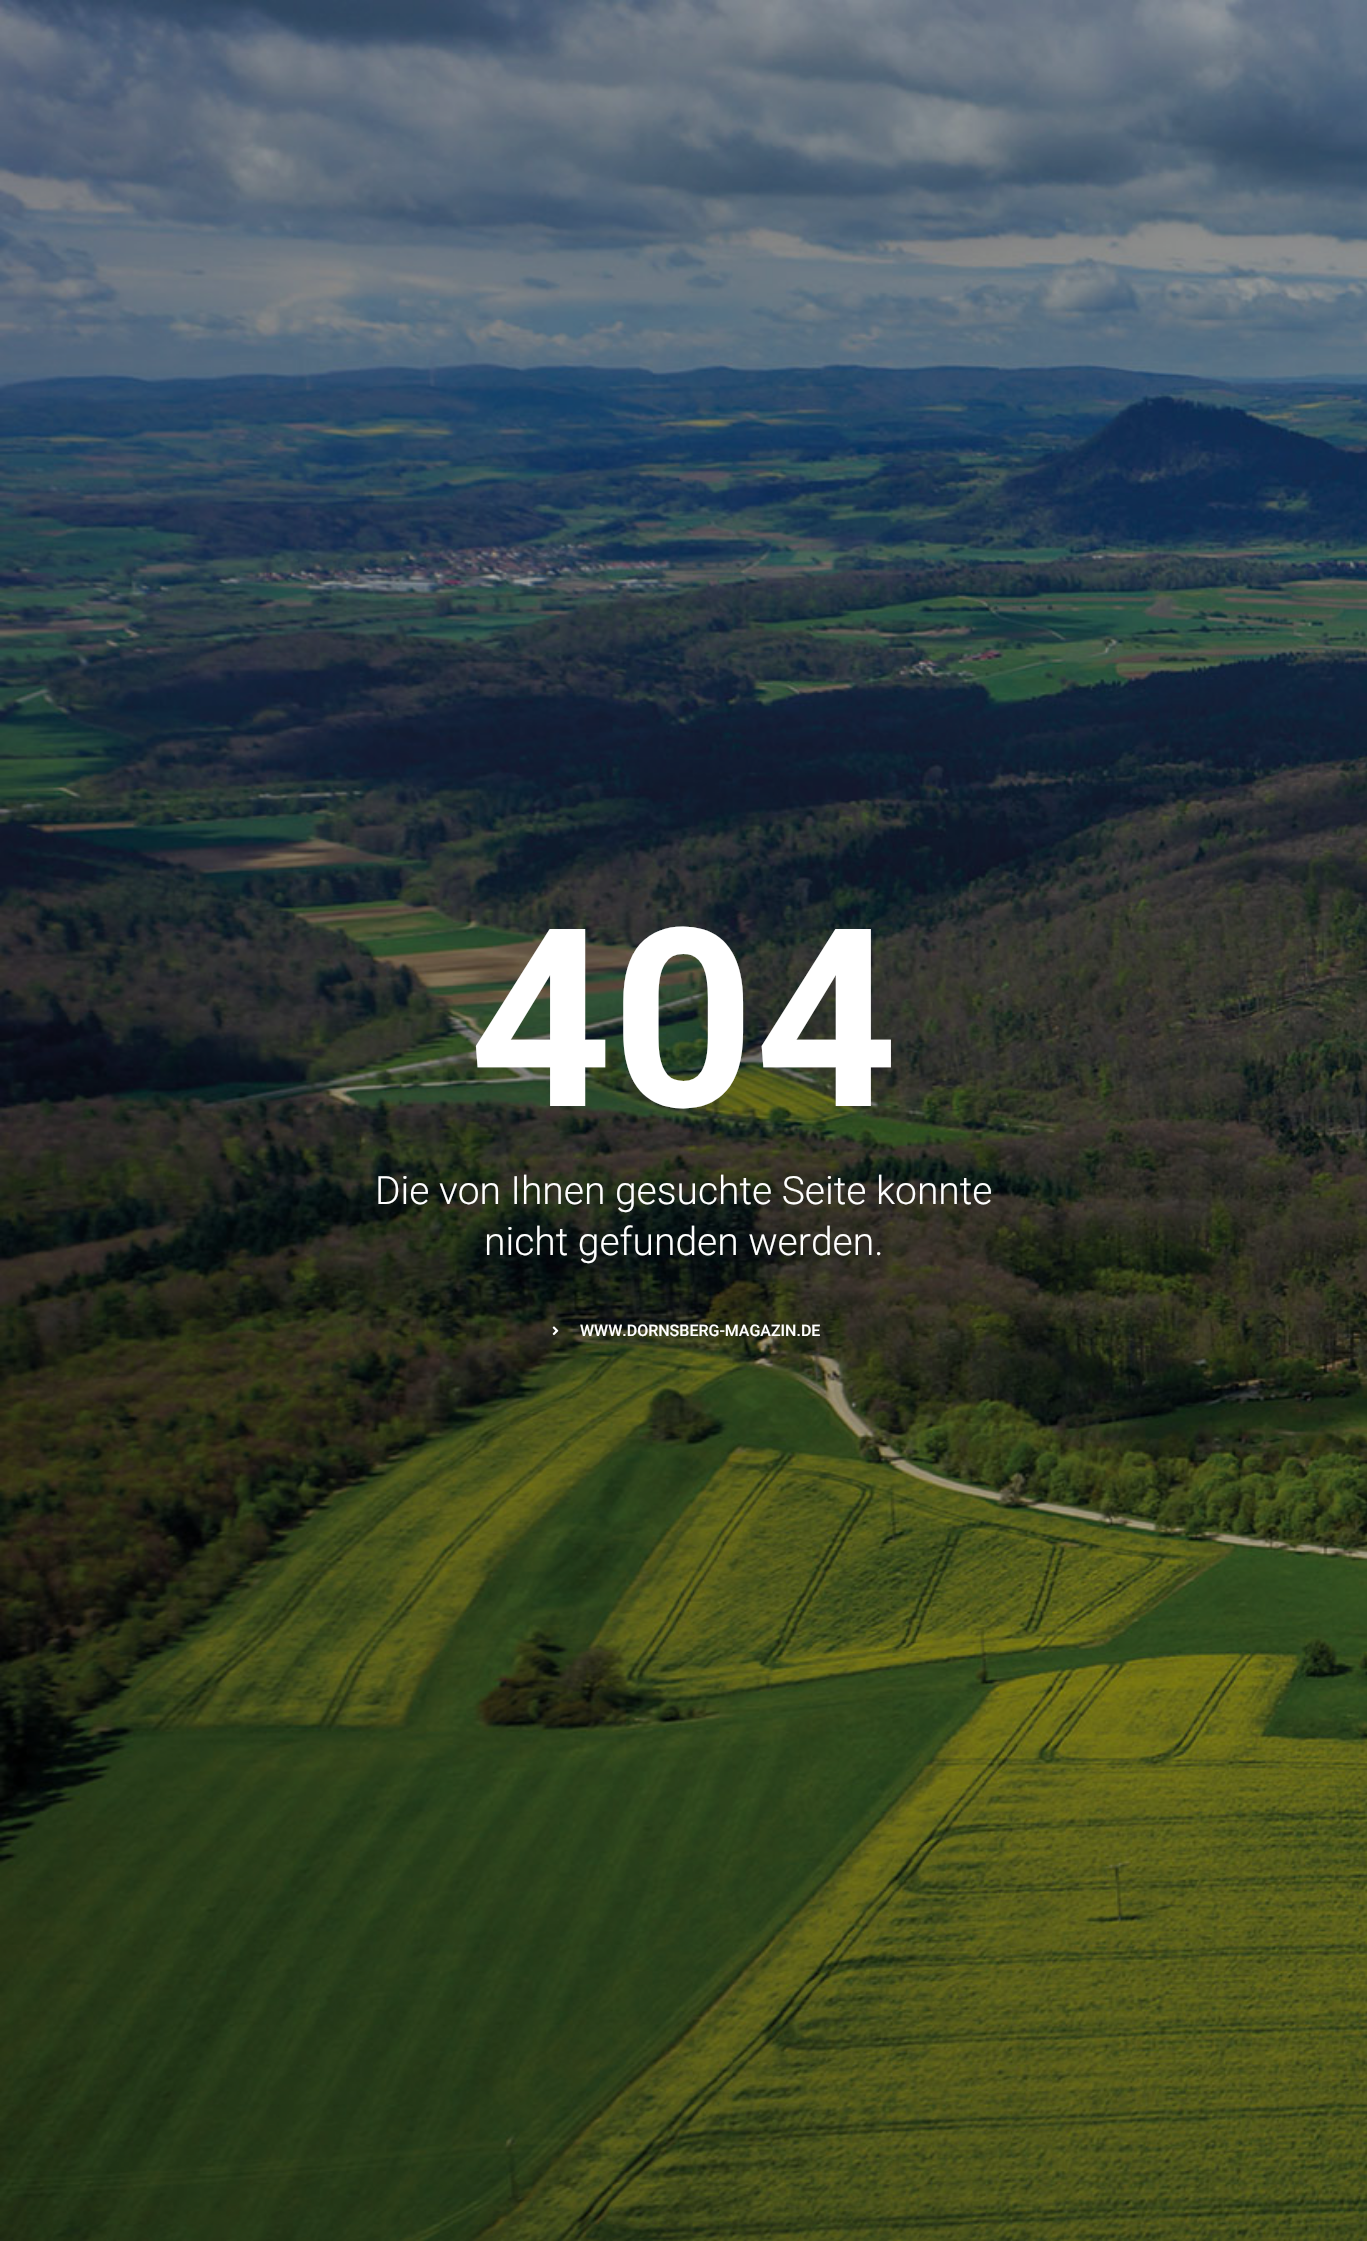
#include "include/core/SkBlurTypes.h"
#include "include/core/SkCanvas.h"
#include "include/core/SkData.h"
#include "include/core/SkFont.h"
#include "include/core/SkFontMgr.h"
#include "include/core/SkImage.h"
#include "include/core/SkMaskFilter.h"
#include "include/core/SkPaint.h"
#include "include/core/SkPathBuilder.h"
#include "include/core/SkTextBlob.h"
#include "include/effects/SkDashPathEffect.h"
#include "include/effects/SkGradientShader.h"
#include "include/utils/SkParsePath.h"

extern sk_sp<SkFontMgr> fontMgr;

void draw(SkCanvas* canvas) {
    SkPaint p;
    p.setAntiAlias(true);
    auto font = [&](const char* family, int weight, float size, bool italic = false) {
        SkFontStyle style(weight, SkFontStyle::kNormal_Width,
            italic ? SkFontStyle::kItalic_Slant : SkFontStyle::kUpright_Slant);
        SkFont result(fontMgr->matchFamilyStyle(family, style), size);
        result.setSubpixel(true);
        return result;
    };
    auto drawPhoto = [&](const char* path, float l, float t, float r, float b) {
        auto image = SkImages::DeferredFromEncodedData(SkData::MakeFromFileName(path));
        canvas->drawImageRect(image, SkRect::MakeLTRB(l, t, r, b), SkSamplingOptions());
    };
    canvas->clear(0xFFFFFFFF);
    drawPhoto("media/1.png", 0, 0, 1367, 2241);
    auto font1 = font("Roboto", 700, 249);
    p.setColor(0xFFFFFFFF);
    canvas->drawString("404", 469, 1106, font1, p);
    auto font2 = font("Roboto", 300, 39);
    canvas->drawString("Die von Ihnen gesuchte Seite konnte", 375, 1204, font2, p);
    canvas->drawString("nicht gefunden werden.", 484, 1255, font2, p);
    drawPhoto("media/2.png", 552, 1326, 559, 1336);
    auto font3 = font("Roboto", 500, 16);
    canvas->drawString("WWW.DORNSBERG-MAGAZIN.DE", 580, 1336, font3, p);
}
